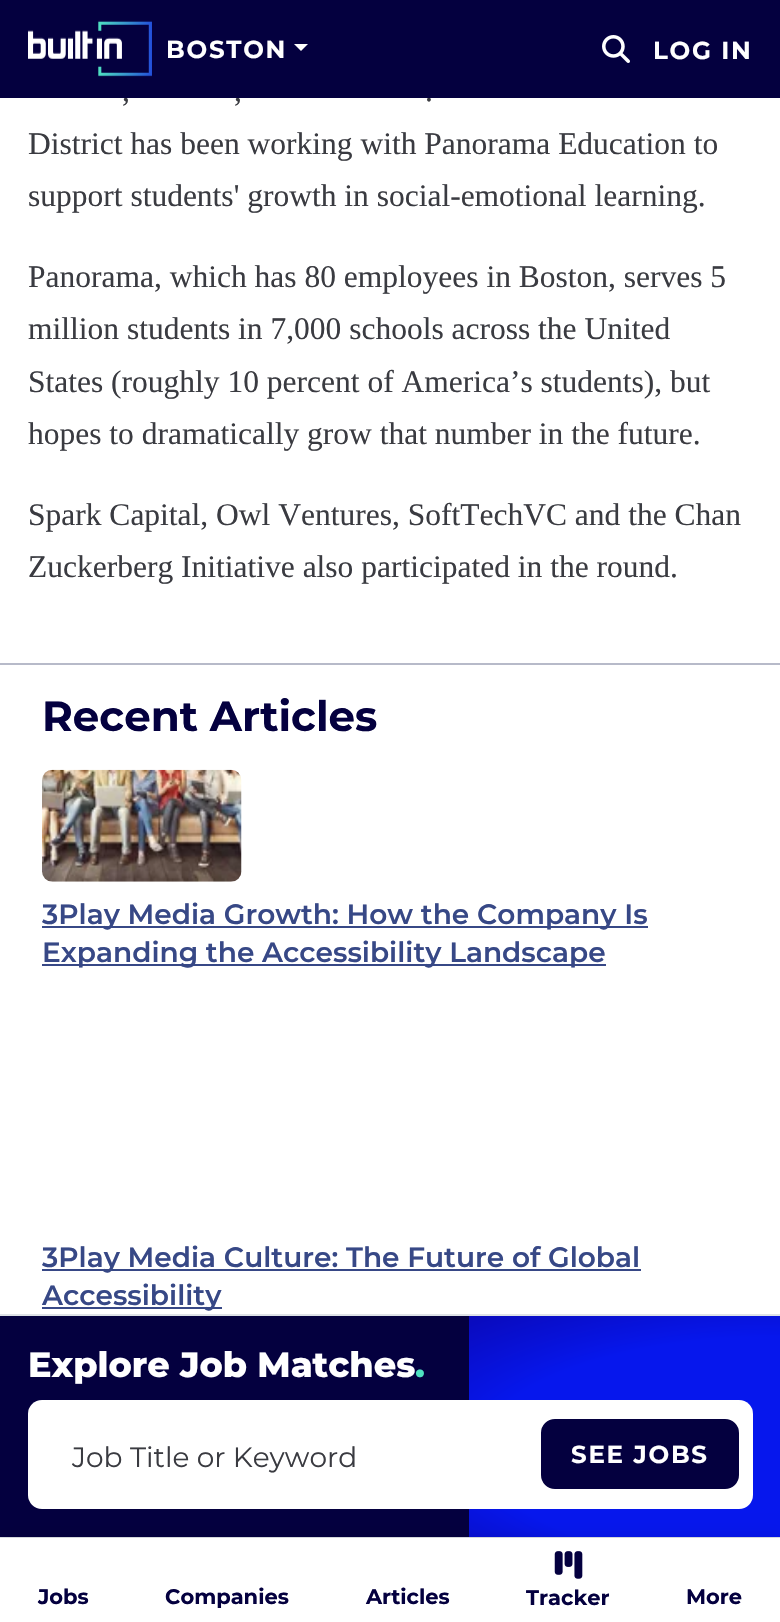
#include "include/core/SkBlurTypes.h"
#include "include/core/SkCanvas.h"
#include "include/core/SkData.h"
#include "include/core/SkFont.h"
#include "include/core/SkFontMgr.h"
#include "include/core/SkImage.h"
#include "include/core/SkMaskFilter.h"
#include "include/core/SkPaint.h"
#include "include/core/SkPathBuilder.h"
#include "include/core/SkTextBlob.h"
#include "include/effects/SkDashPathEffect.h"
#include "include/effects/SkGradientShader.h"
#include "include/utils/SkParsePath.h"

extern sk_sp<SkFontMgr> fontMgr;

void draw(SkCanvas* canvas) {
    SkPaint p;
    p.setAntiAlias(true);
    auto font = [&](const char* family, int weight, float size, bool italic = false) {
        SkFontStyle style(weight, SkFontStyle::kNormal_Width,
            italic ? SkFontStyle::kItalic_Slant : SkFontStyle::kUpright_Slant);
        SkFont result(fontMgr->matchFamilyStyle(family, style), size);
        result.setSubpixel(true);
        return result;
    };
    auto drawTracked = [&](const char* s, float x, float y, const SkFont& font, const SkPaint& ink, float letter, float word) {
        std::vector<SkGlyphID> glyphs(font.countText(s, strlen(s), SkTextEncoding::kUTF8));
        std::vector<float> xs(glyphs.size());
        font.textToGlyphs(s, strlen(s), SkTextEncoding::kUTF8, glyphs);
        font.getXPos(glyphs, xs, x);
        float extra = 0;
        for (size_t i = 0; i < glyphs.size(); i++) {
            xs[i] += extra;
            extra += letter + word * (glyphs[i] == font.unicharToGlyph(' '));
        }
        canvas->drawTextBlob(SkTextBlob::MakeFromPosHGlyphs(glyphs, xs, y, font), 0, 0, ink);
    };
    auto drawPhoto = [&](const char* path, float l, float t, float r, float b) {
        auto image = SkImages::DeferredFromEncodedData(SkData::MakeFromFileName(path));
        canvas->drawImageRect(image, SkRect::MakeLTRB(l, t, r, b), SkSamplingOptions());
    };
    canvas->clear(0xFFFFFFFF);
    auto font1 = font("Liberation Serif", 400, 31.5f);
    p.setColor(0xFF3A3B41);
    {
        const struct { const char* s; float x, y; } items[] = {
            {",", 122, 101},
            {",", 234, 101},
            {".", 425, 101},
        };
        for (auto [s, x, y] : items) {
            canvas->drawString(s, x, y, font1, p);
        }
    }
    p.setColor(0xFF04003F);
    canvas->drawRect(SkRect::MakeLTRB(0, 0, 780, 98), p);
    drawPhoto("media/1.png", 28, 20, 152, 77);
    auto font2 = font("Montserrat", 100, 24.5f);
    p.setColor(0xFFFFFFFF);
    drawTracked("BOSTON", 166, 58, font2, p, 1.75f, 0);
    canvas->drawPath(SkPathBuilder().moveTo(294, 44).lineTo(308, 44).lineTo(301, 51).close().detach(), p);
    drawPhoto("media/2.png", 602, 35, 630, 63);
    drawTracked("LOG IN", 653, 59, font2, p, 1.75f, 0);
    p.setColor(0xFF3A3B41);
    {
        const struct { const char* s; float x, y; } items[] = {
            {"District has been working with Panorama Education to", 28, 154},
            {"support students' growth in social-emotional learning.", 28, 206},
            {"Panorama, which has 80 employees in Boston, serves 5", 28, 287},
            {"million students in 7,000 schools across the United", 28, 339},
            {"States (roughly 10 percent of America’s students), but", 28, 392},
            {"hopes to dramatically grow that number in the future.", 28, 444},
            {"Spark Capital, Owl Ventures, SoftTechVC and the Chan", 28, 525},
            {"Zuckerberg Initiative also participated in the round.", 28, 577},
        };
        for (auto [s, x, y] : items) {
            canvas->drawString(s, x, y, font1, p);
        }
    }
    p.setColor(0xFFB7BAC9);
    canvas->drawRect(SkRect::MakeLTRB(0, 663, 780, 665), p);
    auto font3 = font("Montserrat", 100, 42);
    p.setColor(0xFF04003F);
    canvas->drawString("Recent Articles", 42, 731, font3, p);
    drawPhoto("media/3.png", 42, 769, 242, 882);
    p.setColor(0xFF374886);
    canvas->drawRect(SkRect::MakeLTRB(42, 926, 648, 928), p);
    auto font4 = font("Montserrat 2", 100, 28);
    canvas->drawString("3Play Media Growth: How the Company Is", 42, 924, font4, p);
    canvas->drawRect(SkRect::MakeLTRB(42, 964, 606, 966), p);
    canvas->drawString("Expanding the Accessibility Landscape", 42, 962, font4, p);
    canvas->drawRect(SkRect::MakeLTRB(42, 1269, 641, 1271), p);
    canvas->drawString("3Play Media Culture: The Future of Global", 42, 1267, font4, p);
    canvas->drawRect(SkRect::MakeLTRB(42, 1307, 222, 1309), p);
    canvas->drawString("Accessibility", 42, 1305, font4, p);
    {
        const struct { float l, t, r, b; SkColor color; } items[] = {
            {0, 1316, 469, 1537, 0xFF04003F},
            {0, 1314, 780, 1316, 0xFFDEE2E6},
            {0, 1537, 780, 1538, 0xFFDEE2E6},
        };
        for (auto [l, t, r, b, color] : items) {
            p.setColor(color);
            canvas->drawRect(SkRect::MakeLTRB(l, t, r, b), p);
        }
    }
    {
        const SkColor colors[] = {0xFF0617ED, 0xFF0C029E};
        const float stops[] = {0.52f, 1};
        SkMatrix m = SkMatrix::Translate(778, 1451).preScale(568, 219);
        p.setShader(SkGradientShader::MakeRadial({0, 0}, 1, colors, stops, 2, SkTileMode::kClamp, 0, &m));
        p.setAlpha(255);
    }
    canvas->drawRect(SkRect::MakeLTRB(469, 1316, 780, 1537), p);
    auto font5 = font("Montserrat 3", 100, 35);
    p.setShader(nullptr);
    p.setColor(0xFFFFFFFF);
    canvas->drawString("Explore Job Matches", 28, 1377, font5, p);
    p.setColor(0xFF4FE2C1);
    canvas->drawString(".", 415, 1377, font5, p);
    p.setColor(0xFFFFFFFF);
    canvas->drawRoundRect(SkRect::MakeLTRB(28, 1400, 753, 1509), 14, 14, p);
    auto font6 = font("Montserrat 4", 100, 28);
    p.setColor(0xFF3A3B41);
    canvas->drawString("Job Title or Keyword", 72, 1467, font6, p);
    p.setColor(0xFF04003F);
    canvas->drawRoundRect(SkRect::MakeLTRB(542, 1420, 738, 1488), 13, 13, p);
    p.setStyle(SkPaint::kStroke_Style);
    p.setStrokeWidth(2);
    canvas->drawRoundRect(SkRect::MakeLTRB(542, 1420, 738, 1488), 13, 13, p);
    p.setStyle(SkPaint::kFill_Style);
    p.setColor(0xFFFFFFFF);
    drawTracked("SEE JOBS", 571, 1463, font2, p, 1.75f, 0);
    p.setColor(0x1F000000);
    p.setMaskFilter(SkMaskFilter::MakeBlur(kNormal_SkBlurStyle, 9));
    canvas->drawRect(SkRect::MakeLTRB(0, 1540, 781, 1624), p);
    p.setMaskFilter(nullptr);
    p.setColor(0xFFFFFFFF);
    canvas->drawRect(SkRect::MakeLTRB(0, 1538, 780, 1622), p);
    auto font7 = font("Montserrat", 100, 21);
    p.setColor(0xFF04003F);
    {
        const struct { const char* s; float x, y; } items[] = {
            {"Jobs", 38, 1604},
            {"Companies", 165, 1604},
            {"Articles", 366, 1604},
        };
        for (auto [s, x, y] : items) {
            canvas->drawString(s, x, y, font7, p);
        }
    }
    drawPhoto("media/4.png", 554, 1551, 583, 1579);
    canvas->drawString("Tracker", 526, 1605, font7, p);
    canvas->drawString("More", 686, 1604, font7, p);
}
